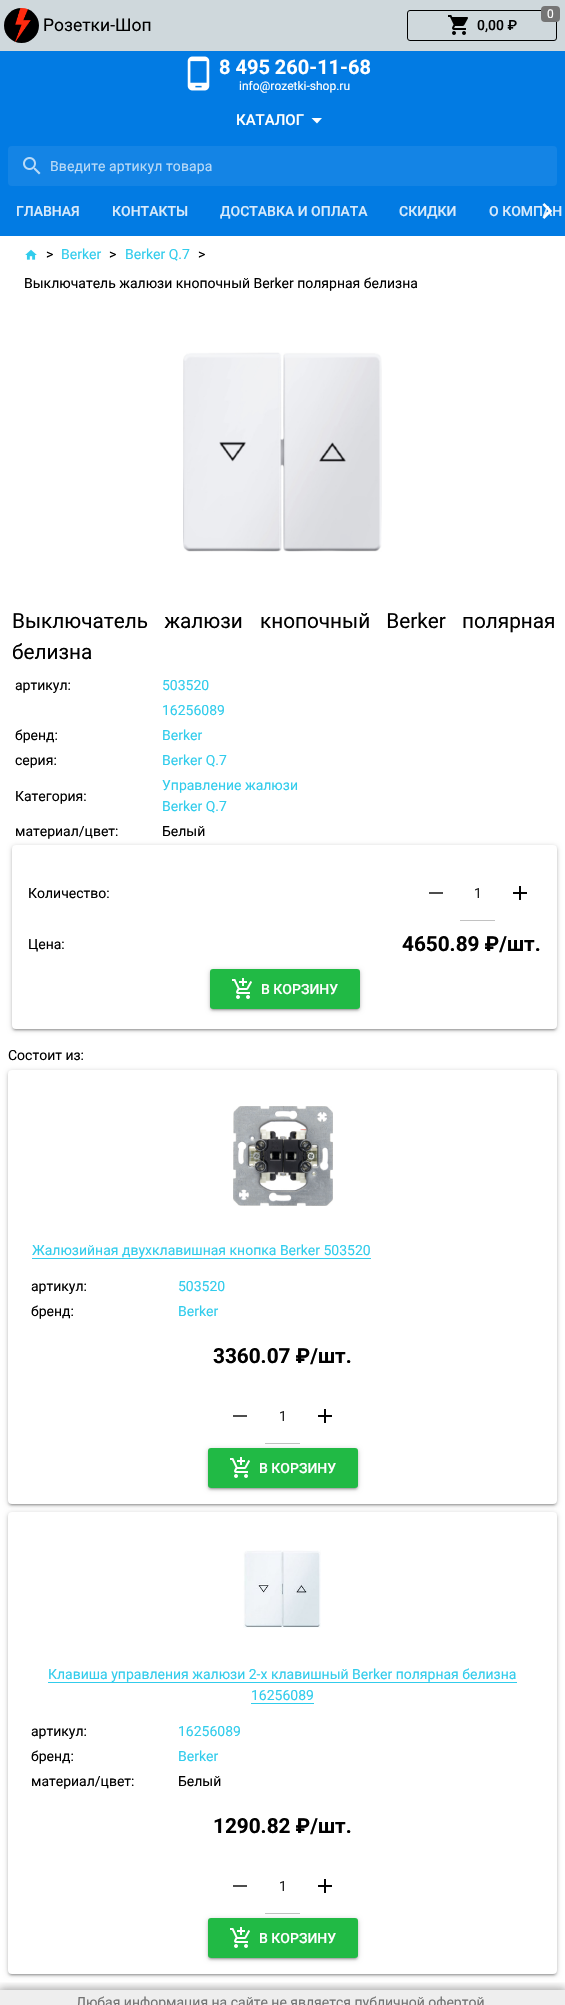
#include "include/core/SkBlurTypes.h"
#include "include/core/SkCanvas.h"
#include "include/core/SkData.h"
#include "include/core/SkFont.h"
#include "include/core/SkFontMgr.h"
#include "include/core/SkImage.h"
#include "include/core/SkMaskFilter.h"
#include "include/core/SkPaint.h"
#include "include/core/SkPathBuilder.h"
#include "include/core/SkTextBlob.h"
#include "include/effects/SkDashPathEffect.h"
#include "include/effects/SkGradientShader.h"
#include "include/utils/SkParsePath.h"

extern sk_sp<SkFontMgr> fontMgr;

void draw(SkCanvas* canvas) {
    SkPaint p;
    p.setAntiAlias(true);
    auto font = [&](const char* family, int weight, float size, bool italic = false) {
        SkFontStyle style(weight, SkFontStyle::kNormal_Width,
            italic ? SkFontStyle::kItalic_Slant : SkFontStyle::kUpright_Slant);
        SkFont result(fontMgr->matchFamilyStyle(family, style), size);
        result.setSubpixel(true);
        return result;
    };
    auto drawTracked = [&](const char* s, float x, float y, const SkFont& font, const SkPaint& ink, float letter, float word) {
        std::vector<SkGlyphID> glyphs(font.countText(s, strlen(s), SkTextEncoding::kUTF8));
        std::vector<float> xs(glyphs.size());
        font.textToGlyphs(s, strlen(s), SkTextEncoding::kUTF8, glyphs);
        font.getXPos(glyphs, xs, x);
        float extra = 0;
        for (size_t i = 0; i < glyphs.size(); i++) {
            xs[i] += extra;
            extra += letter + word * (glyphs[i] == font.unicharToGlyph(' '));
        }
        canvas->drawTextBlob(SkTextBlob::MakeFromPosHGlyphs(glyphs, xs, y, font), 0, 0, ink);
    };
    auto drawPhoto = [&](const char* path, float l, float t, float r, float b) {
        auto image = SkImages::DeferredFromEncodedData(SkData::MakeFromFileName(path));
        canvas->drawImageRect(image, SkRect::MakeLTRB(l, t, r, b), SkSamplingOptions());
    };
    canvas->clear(0xFFFFFFFF);
    p.setColor(0xFFCFD8DC);
    canvas->drawRect(SkRect::MakeLTRB(0, 0, 565, 51), p);
    drawPhoto("media/1.png", 4, 8, 39, 43);
    auto font1 = font("Roboto", 400, 17.5f);
    p.setColor(0xFF000000);
    canvas->drawString("Розетки-Шоп", 43, 31, font1, p);
    p.setStyle(SkPaint::kStroke_Style);
    p.setStrokeWidth(1);
    canvas->drawRoundRect(SkRect::MakeLTRB(407.5f, 10.5f, 556.5f, 40.5f), 2.5f, 2.5f, p);
    p.setStyle(SkPaint::kFill_Style);
    p.setColor(0xFF757575);
    canvas->drawRoundRect(SkRect::MakeLTRB(541, 6, 560, 22), 4, 4, p);
    auto font2 = font("Roboto", 400, 12);
    p.setColor(0xFFFFFFFF);
    canvas->drawString("0", 547, 18, font2, p);
    drawPhoto("media/2.png", 448, 15, 468, 35);
    auto font3 = font("Roboto", 500, 14);
    p.setColor(0xFF000000);
    canvas->drawString("0,00 ₽", 477, 30, font3, p);
    p.setColor(0xFF027BE3);
    canvas->drawRect(SkRect::MakeLTRB(0, 51, 565, 236), p);
    drawPhoto("media/3.png", 187, 56, 210, 91);
    auto font4 = font("Roboto", 700, 20);
    p.setColor(0xFFFFFFFF);
    canvas->drawString("8 495 260-11-68", 219, 74, font4, p);
    canvas->drawString("info@rozetki-shop.ru", 239, 90, font2, p);
    auto font5 = font("Roboto", 500, 15);
    canvas->drawString("КАТАЛОГ", 236, 125, font5, p);
    canvas->drawPath(SkPathBuilder().moveTo(311.5f, 118).lineTo(322, 118).lineTo(317, 123.5f).close().detach(), p);
    p.setColor(0xFF1484E5);
    canvas->drawRoundRect(SkRect::MakeLTRB(8, 146, 557, 186), 4, 4, p);
    drawPhoto("media/4.png", 23, 157, 41, 175);
    auto font6 = font("Roboto", 400, 14);
    p.setColor(0xFFB9DAF7);
    drawTracked("Введите артикул товара", 50, 171, font6, p, 0.1f, 0);
    p.setColor(0xFFD9EBFB);
    canvas->drawString("О КОМПАН", 489, 216, font3, p);
    drawPhoto("media/5.png", 542, 203, 553, 219);
    {
        const struct { const char* s; float x, y; } items[] = {
            {"ГЛАВНАЯ", 16, 216},
            {"КОНТАКТЫ", 112, 216},
            {"ДОСТАВКА И ОПЛАТА", 220, 216},
            {"СКИДКИ", 399, 216},
        };
        for (auto [s, x, y] : items) {
            canvas->drawString(s, x, y, font3, p);
        }
    }
    drawPhoto("media/6.png", 25, 249, 37, 260);
    p.setColor(0xFF000000);
    canvas->drawString(">", 46, 259, font6, p);
    p.setColor(0xFF31CCEC);
    canvas->drawString("Berker", 61, 259, font6, p);
    p.setColor(0xFF000000);
    canvas->drawString(">", 109, 259, font6, p);
    p.setColor(0xFF31CCEC);
    canvas->drawString("Berker Q.7", 125, 259, font6, p);
    p.setColor(0xFF000000);
    canvas->drawString(">", 198, 259, font6, p);
    canvas->drawString("Выключатель жалюзи кнопочный Berker полярная белизна", 24, 288, font6, p);
    drawPhoto("media/7.png", 183, 352, 382, 552);
    auto font7 = font("Roboto", 400, 20.75f);
    drawTracked("Выключатель жалюзи", 12, 628, font7, p, 0, 11);
    drawTracked("кнопочный Berker полярная", 260, 628, font7, p, 0, 11);
    canvas->drawString("белизна", 12, 659, font7, p);
    canvas->drawString("артикул:", 15, 690, font6, p);
    p.setColor(0xFF31CCEC);
    canvas->drawString("503520", 162, 690, font6, p);
    canvas->drawString("16256089", 162, 715, font6, p);
    p.setColor(0xFF000000);
    canvas->drawString("бренд:", 15, 740, font6, p);
    p.setColor(0xFF31CCEC);
    canvas->drawString("Berker", 162, 740, font6, p);
    p.setColor(0xFF000000);
    canvas->drawString("серия:", 15, 765, font6, p);
    p.setColor(0xFF31CCEC);
    canvas->drawString("Berker Q.7", 162, 765, font6, p);
    p.setColor(0xFF000000);
    canvas->drawString("Категория:", 15, 801, font6, p);
    p.setColor(0xFF31CCEC);
    canvas->drawString("Управление жалюзи", 162, 790, font6, p);
    canvas->drawString("Berker Q.7", 162, 811, font6, p);
    p.setColor(0xFF000000);
    canvas->drawString("материал/цвет:", 15, 836, font6, p);
    canvas->drawString("Белый", 162, 836, font6, p);
    p.setColor(0x1F000000);
    p.setMaskFilter(SkMaskFilter::MakeBlur(kNormal_SkBlurStyle, 0.5f));
    canvas->drawRoundRect(SkRect::MakeLTRB(14, 850, 555, 1030), 2, 2, p);
    p.setMaskFilter(nullptr);
    p.setColor(0x24000000);
    p.setMaskFilter(SkMaskFilter::MakeBlur(kNormal_SkBlurStyle, 1));
    canvas->drawRoundRect(SkRect::MakeLTRB(12, 847, 557, 1031), 4, 4, p);
    p.setMaskFilter(nullptr);
    p.setColor(0x33000000);
    p.setMaskFilter(SkMaskFilter::MakeBlur(kNormal_SkBlurStyle, 2.5f));
    canvas->drawRoundRect(SkRect::MakeLTRB(12, 846, 557, 1030), 4, 4, p);
    p.setMaskFilter(nullptr);
    p.setColor(0xFFFFFFFF);
    canvas->drawRoundRect(SkRect::MakeLTRB(12, 845, 557, 1029), 4, 4, p);
    p.setColor(0xFF000000);
    canvas->drawString("Количество:", 28, 898, font6, p);
    p.setColor(0xFF4D4D4D);
    canvas->drawRect(SkRect::MakeLTRB(429, 892, 443, 894), p);
    p.setColor(0xFF212121);
    drawTracked("1", 474, 898, font6, p, 0.1f, 0);
    p.setColor(0xFFC2C2C2);
    canvas->drawRect(SkRect::MakeLTRB(460, 920, 495, 921), p);
    drawPhoto("media/8.png", 513, 886, 527, 900);
    p.setColor(0xFF000000);
    canvas->drawString("Цена:", 28, 949, font6, p);
    auto font8 = font("Roboto", 700, 20.75f);
    canvas->drawString("4650.89 ₽/шт.", 402, 951, font8, p);
    p.setColor(0xFF21BA45);
    canvas->drawRoundRect(SkRect::MakeLTRB(210, 969, 360, 1009), 3, 3, p);
    canvas->save();
    canvas->clipRect(SkRect::MakeLTRB(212, 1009, 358, 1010));
    p.setColor(0x1F000000);
    p.setMaskFilter(SkMaskFilter::MakeBlur(kNormal_SkBlurStyle, 0.5f));
    canvas->drawRoundRect(SkRect::MakeLTRB(212, 974, 358, 1010), 1, 1, p);
    p.setMaskFilter(nullptr);
    canvas->restore();
    canvas->save();
    canvas->clipPath(SkPathBuilder(SkPathFillType::kEvenOdd).moveTo(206, 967).lineTo(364, 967).lineTo(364, 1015).lineTo(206, 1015).close().moveTo(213, 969).lineTo(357, 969).cubicTo(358.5f, 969, 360, 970.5f, 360, 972).lineTo(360, 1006).cubicTo(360, 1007.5f, 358.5f, 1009, 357, 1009).lineTo(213, 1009).cubicTo(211.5f, 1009, 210, 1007.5f, 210, 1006).lineTo(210, 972).cubicTo(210, 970.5f, 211.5f, 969, 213, 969).close().detach(), true);
    p.setColor(0x24000000);
    p.setMaskFilter(SkMaskFilter::MakeBlur(kNormal_SkBlurStyle, 1));
    canvas->drawRoundRect(SkRect::MakeLTRB(210, 971, 360, 1011), 3, 3, p);
    p.setMaskFilter(nullptr);
    canvas->restore();
    canvas->save();
    canvas->clipPath(SkPathBuilder(SkPathFillType::kEvenOdd).moveTo(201, 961).lineTo(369, 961).lineTo(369, 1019).lineTo(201, 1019).close().moveTo(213, 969).lineTo(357, 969).cubicTo(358.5f, 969, 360, 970.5f, 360, 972).lineTo(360, 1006).cubicTo(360, 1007.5f, 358.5f, 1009, 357, 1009).lineTo(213, 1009).cubicTo(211.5f, 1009, 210, 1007.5f, 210, 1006).lineTo(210, 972).cubicTo(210, 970.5f, 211.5f, 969, 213, 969).close().detach(), true);
    p.setColor(0x33000000);
    p.setMaskFilter(SkMaskFilter::MakeBlur(kNormal_SkBlurStyle, 2.5f));
    canvas->drawRoundRect(SkRect::MakeLTRB(210, 970, 360, 1010), 3, 3, p);
    p.setMaskFilter(nullptr);
    canvas->restore();
    drawPhoto("media/9.png", 232, 978, 252, 999);
    p.setColor(0xFFFFFFFF);
    canvas->drawString("В КОРЗИНУ", 261, 994, font3, p);
    p.setColor(0xFF000000);
    canvas->drawString("Состоит из:", 8, 1060, font6, p);
    p.setColor(0x1F000000);
    p.setMaskFilter(SkMaskFilter::MakeBlur(kNormal_SkBlurStyle, 0.5f));
    canvas->drawRoundRect(SkRect::MakeLTRB(10, 1075, 555, 1505), 2, 2, p);
    p.setMaskFilter(nullptr);
    p.setColor(0x24000000);
    p.setMaskFilter(SkMaskFilter::MakeBlur(kNormal_SkBlurStyle, 1));
    canvas->drawRoundRect(SkRect::MakeLTRB(8, 1072, 557, 1506), 4, 4, p);
    p.setMaskFilter(nullptr);
    p.setColor(0x33000000);
    p.setMaskFilter(SkMaskFilter::MakeBlur(kNormal_SkBlurStyle, 2.5f));
    canvas->drawRoundRect(SkRect::MakeLTRB(8, 1071, 557, 1505), 4, 4, p);
    p.setMaskFilter(nullptr);
    p.setColor(0xFFFFFFFF);
    canvas->drawRoundRect(SkRect::MakeLTRB(8, 1070, 557, 1504), 4, 4, p);
    drawPhoto("media/10.png", 233, 1106, 333, 1206);
    p.setColor(0xFF31CCEC);
    canvas->drawString("Жалюзийная двухклавишная кнопка Berker 503520", 32, 1255, font6, p);
    canvas->drawRect(SkRect::MakeLTRB(32, 1258, 371, 1259), p);
    p.setColor(0xFF000000);
    canvas->drawString("артикул:", 31, 1291, font6, p);
    p.setColor(0xFF31CCEC);
    canvas->drawString("503520", 178, 1291, font6, p);
    p.setColor(0xFF000000);
    canvas->drawString("бренд:", 31, 1316, font6, p);
    p.setColor(0xFF31CCEC);
    canvas->drawString("Berker", 178, 1316, font6, p);
    p.setColor(0xFF000000);
    canvas->drawString("3360.07 ₽/шт.", 213, 1363, font8, p);
    p.setColor(0xFF4D4D4D);
    canvas->drawRect(SkRect::MakeLTRB(233, 1415, 247, 1417), p);
    p.setColor(0xFF212121);
    drawTracked("1", 279, 1421, font6, p, 0.1f, 0);
    p.setColor(0xFF21BA45);
    canvas->drawRoundRect(SkRect::MakeLTRB(208, 1448, 358, 1488), 3, 3, p);
    canvas->save();
    canvas->clipPath(SkPathBuilder(SkPathFillType::kEvenOdd).moveTo(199, 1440).lineTo(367, 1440).lineTo(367, 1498).lineTo(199, 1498).close().moveTo(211, 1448).lineTo(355, 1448).cubicTo(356.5f, 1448, 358, 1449.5f, 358, 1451).lineTo(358, 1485).cubicTo(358, 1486.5f, 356.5f, 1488, 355, 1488).lineTo(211, 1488).cubicTo(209.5f, 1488, 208, 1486.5f, 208, 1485).lineTo(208, 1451).cubicTo(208, 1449.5f, 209.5f, 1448, 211, 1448).close().detach(), true);
    p.setColor(0x33000000);
    p.setMaskFilter(SkMaskFilter::MakeBlur(kNormal_SkBlurStyle, 2.5f));
    canvas->drawRoundRect(SkRect::MakeLTRB(208, 1449, 358, 1489), 3, 3, p);
    p.setMaskFilter(nullptr);
    canvas->restore();
    p.setColor(0xFFC1C1C1);
    canvas->drawRect(SkRect::MakeLTRB(265, 1443, 300, 1444), p);
    drawPhoto("media/8.png", 318, 1409, 332, 1423);
    canvas->save();
    canvas->clipRect(SkRect::MakeLTRB(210, 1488, 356, 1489));
    p.setColor(0x1F000000);
    p.setMaskFilter(SkMaskFilter::MakeBlur(kNormal_SkBlurStyle, 0.5f));
    canvas->drawRoundRect(SkRect::MakeLTRB(210, 1453, 356, 1489), 1, 1, p);
    p.setMaskFilter(nullptr);
    canvas->restore();
    canvas->save();
    canvas->clipPath(SkPathBuilder(SkPathFillType::kEvenOdd).moveTo(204, 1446).lineTo(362, 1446).lineTo(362, 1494).lineTo(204, 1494).close().moveTo(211, 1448).lineTo(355, 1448).cubicTo(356.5f, 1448, 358, 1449.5f, 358, 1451).lineTo(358, 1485).cubicTo(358, 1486.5f, 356.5f, 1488, 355, 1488).lineTo(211, 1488).cubicTo(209.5f, 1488, 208, 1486.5f, 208, 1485).lineTo(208, 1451).cubicTo(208, 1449.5f, 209.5f, 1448, 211, 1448).close().detach(), true);
    p.setColor(0x24000000);
    p.setMaskFilter(SkMaskFilter::MakeBlur(kNormal_SkBlurStyle, 1));
    canvas->drawRoundRect(SkRect::MakeLTRB(208, 1450, 358, 1490), 3, 3, p);
    p.setMaskFilter(nullptr);
    canvas->restore();
    drawPhoto("media/9.png", 230, 1457, 250, 1478);
    p.setColor(0xFFFFFFFF);
    canvas->drawString("В КОРЗИНУ", 259, 1473, font3, p);
    p.setColor(0x1F000000);
    p.setMaskFilter(SkMaskFilter::MakeBlur(kNormal_SkBlurStyle, 0.5f));
    canvas->drawRoundRect(SkRect::MakeLTRB(10, 1517, 555, 1975), 2, 2, p);
    p.setMaskFilter(nullptr);
    p.setColor(0x24000000);
    p.setMaskFilter(SkMaskFilter::MakeBlur(kNormal_SkBlurStyle, 1));
    canvas->drawRoundRect(SkRect::MakeLTRB(8, 1514, 557, 1976), 4, 4, p);
    p.setMaskFilter(nullptr);
    p.setColor(0x33000000);
    p.setMaskFilter(SkMaskFilter::MakeBlur(kNormal_SkBlurStyle, 2.5f));
    canvas->drawRoundRect(SkRect::MakeLTRB(8, 1513, 557, 1975), 4, 4, p);
    p.setMaskFilter(nullptr);
    p.setColor(0xFFFFFFFF);
    canvas->drawRoundRect(SkRect::MakeLTRB(8, 1512, 557, 1974), 4, 4, p);
    drawPhoto("media/11.png", 243, 1550, 321, 1628);
    p.setColor(0xFF31CCEC);
    canvas->drawString("Клавиша управления жалюзи 2-х клавишный Berker полярная белизна", 48, 1679, font6, p);
    canvas->drawRect(SkRect::MakeLTRB(48, 1682, 517, 1683), p);
    canvas->drawString("16256089", 251, 1700, font6, p);
    canvas->drawRect(SkRect::MakeLTRB(251, 1703, 314, 1704), p);
    p.setColor(0xFF000000);
    canvas->drawString("артикул:", 31, 1736, font6, p);
    p.setColor(0xFF31CCEC);
    canvas->drawString("16256089", 178, 1736, font6, p);
    p.setColor(0xFF000000);
    canvas->drawString("бренд:", 31, 1761, font6, p);
    p.setColor(0xFF31CCEC);
    canvas->drawString("Berker", 178, 1761, font6, p);
    p.setColor(0xFF000000);
    canvas->drawString("материал/цвет:", 31, 1786, font6, p);
    canvas->drawString("Белый", 178, 1786, font6, p);
    canvas->drawString("1290.82 ₽/шт.", 213, 1833, font8, p);
    p.setColor(0xFF4D4D4D);
    canvas->drawRect(SkRect::MakeLTRB(233, 1885, 247, 1887), p);
    p.setColor(0xFF212121);
    drawTracked("1", 279, 1891, font6, p, 0.1f, 0);
    p.setColor(0xFF21BA45);
    canvas->drawRoundRect(SkRect::MakeLTRB(208, 1918, 358, 1958), 3, 3, p);
    canvas->save();
    canvas->clipPath(SkPathBuilder(SkPathFillType::kEvenOdd).moveTo(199, 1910).lineTo(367, 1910).lineTo(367, 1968).lineTo(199, 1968).close().moveTo(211, 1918).lineTo(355, 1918).cubicTo(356.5f, 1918, 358, 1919.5f, 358, 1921).lineTo(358, 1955).cubicTo(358, 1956.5f, 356.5f, 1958, 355, 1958).lineTo(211, 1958).cubicTo(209.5f, 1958, 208, 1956.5f, 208, 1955).lineTo(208, 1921).cubicTo(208, 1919.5f, 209.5f, 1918, 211, 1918).close().detach(), true);
    p.setColor(0x33000000);
    p.setMaskFilter(SkMaskFilter::MakeBlur(kNormal_SkBlurStyle, 2.5f));
    canvas->drawRoundRect(SkRect::MakeLTRB(208, 1919, 358, 1959), 3, 3, p);
    p.setMaskFilter(nullptr);
    canvas->restore();
    p.setColor(0xFFC1C1C1);
    canvas->drawRect(SkRect::MakeLTRB(265, 1913, 300, 1914), p);
    drawPhoto("media/8.png", 318, 1879, 332, 1893);
    canvas->save();
    canvas->clipRect(SkRect::MakeLTRB(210, 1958, 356, 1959));
    p.setColor(0x1F000000);
    p.setMaskFilter(SkMaskFilter::MakeBlur(kNormal_SkBlurStyle, 0.5f));
    canvas->drawRoundRect(SkRect::MakeLTRB(210, 1923, 356, 1959), 1, 1, p);
    p.setMaskFilter(nullptr);
    canvas->restore();
    canvas->save();
    canvas->clipPath(SkPathBuilder(SkPathFillType::kEvenOdd).moveTo(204, 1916).lineTo(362, 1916).lineTo(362, 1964).lineTo(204, 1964).close().moveTo(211, 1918).lineTo(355, 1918).cubicTo(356.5f, 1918, 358, 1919.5f, 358, 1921).lineTo(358, 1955).cubicTo(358, 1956.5f, 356.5f, 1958, 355, 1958).lineTo(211, 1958).cubicTo(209.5f, 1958, 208, 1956.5f, 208, 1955).lineTo(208, 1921).cubicTo(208, 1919.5f, 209.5f, 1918, 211, 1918).close().detach(), true);
    p.setColor(0x24000000);
    p.setMaskFilter(SkMaskFilter::MakeBlur(kNormal_SkBlurStyle, 1));
    canvas->drawRoundRect(SkRect::MakeLTRB(208, 1920, 358, 1960), 3, 3, p);
    p.setMaskFilter(nullptr);
    canvas->restore();
    drawPhoto("media/9.png", 230, 1927, 250, 1948);
    p.setColor(0xFFFFFFFF);
    canvas->drawString("В КОРЗИНУ", 259, 1943, font3, p);
    p.setColor(0xFFEEEEEE);
    canvas->drawRect(SkRect::MakeLTRB(0, 1990, 565, 2005), p);
    canvas->save();
    canvas->clipRect(SkRect::MakeLTRB(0, 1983, 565, 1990));
    p.setColor(0x3D000000);
    p.setMaskFilter(SkMaskFilter::MakeBlur(kNormal_SkBlurStyle, 5));
    canvas->drawRect(SkRect::MakeLTRB(0, 1990, 565, 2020), p);
    p.setMaskFilter(nullptr);
    canvas->restore();
    canvas->save();
    canvas->clipRect(SkRect::MakeLTRB(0, 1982, 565, 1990));
    p.setColor(0x33000000);
    p.setMaskFilter(SkMaskFilter::MakeBlur(kNormal_SkBlurStyle, 5));
    canvas->drawRect(SkRect::MakeLTRB(-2, 1988, 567, 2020), p);
    p.setMaskFilter(nullptr);
    canvas->restore();
    p.setColor(0xFF737373);
    canvas->drawString("Любая информация на сайте не является публичной офертой", 76, 2007, font6, p);
}
